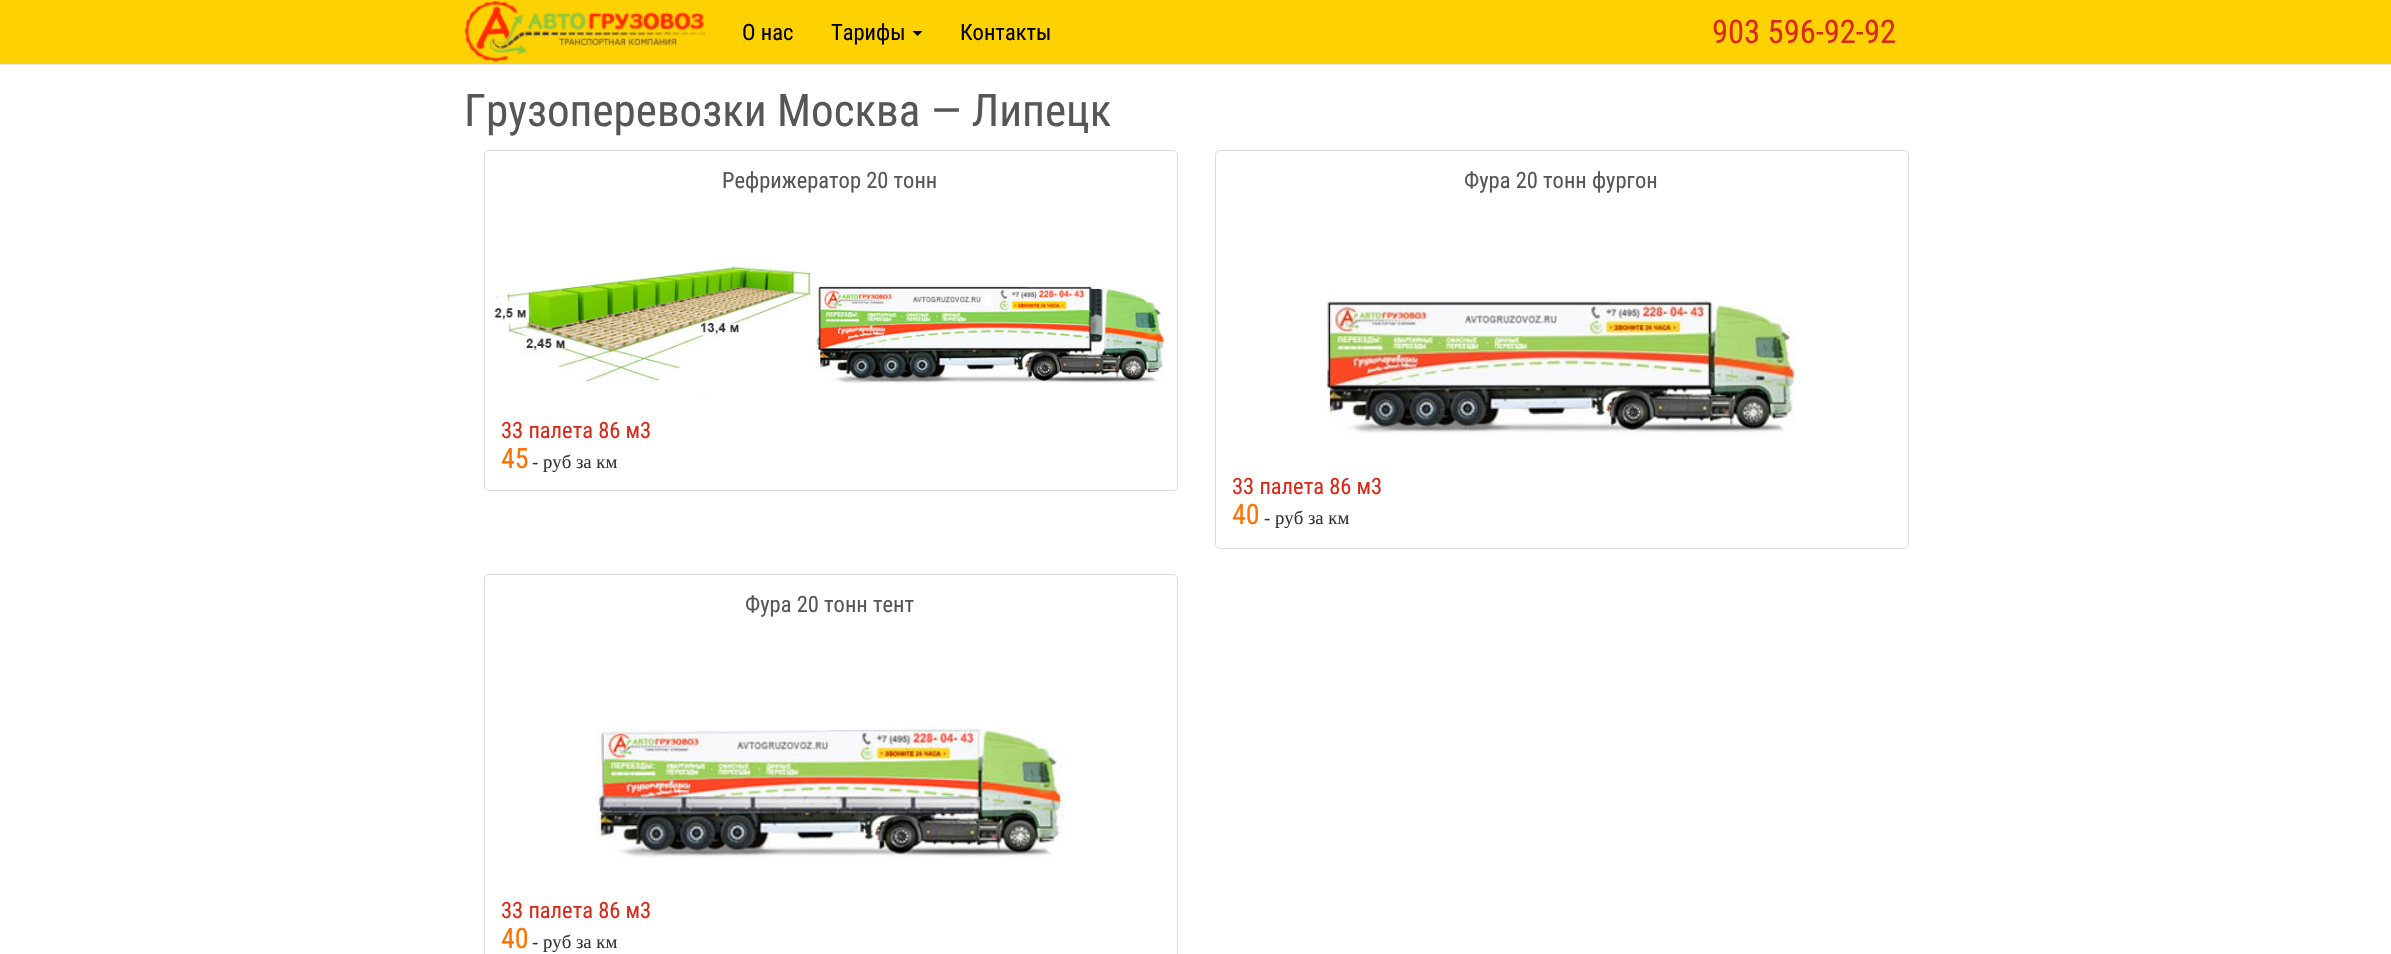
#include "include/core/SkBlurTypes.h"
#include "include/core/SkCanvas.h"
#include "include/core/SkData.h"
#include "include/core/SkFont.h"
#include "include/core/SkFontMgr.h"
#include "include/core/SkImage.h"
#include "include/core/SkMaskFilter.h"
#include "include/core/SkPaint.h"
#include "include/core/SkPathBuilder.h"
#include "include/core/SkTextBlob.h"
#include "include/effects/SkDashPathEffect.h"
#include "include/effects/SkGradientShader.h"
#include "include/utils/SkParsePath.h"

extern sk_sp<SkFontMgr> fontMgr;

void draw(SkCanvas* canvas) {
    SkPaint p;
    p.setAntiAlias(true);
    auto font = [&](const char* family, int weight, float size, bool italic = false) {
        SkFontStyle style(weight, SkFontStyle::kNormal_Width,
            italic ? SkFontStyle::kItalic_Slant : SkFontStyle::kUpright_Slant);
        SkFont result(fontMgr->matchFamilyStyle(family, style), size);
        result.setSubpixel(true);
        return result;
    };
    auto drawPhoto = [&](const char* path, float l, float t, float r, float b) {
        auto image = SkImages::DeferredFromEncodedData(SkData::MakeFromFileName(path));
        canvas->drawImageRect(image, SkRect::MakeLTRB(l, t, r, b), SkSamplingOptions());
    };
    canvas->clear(0xFFFFFFFF);
    p.setColor(0xFFFED100);
    canvas->drawRect(SkRect::MakeLTRB(0, 0, 2391, 64), p);
    p.setColor(0xFFE7E7E7);
    canvas->drawRect(SkRect::MakeLTRB(0, 64, 2391, 65), p);
    drawPhoto("media/1.png", 464, 1, 705, 62);
    auto font1 = font("Roboto Condensed", 400, 22.5f);
    p.setColor(0xFF000000);
    canvas->drawString("О нас", 742, 40, font1, p);
    canvas->drawString("Тарифы", 831, 40, font1, p);
    canvas->drawPath(SkPathBuilder().moveTo(912.5f, 31).lineTo(922.5f, 31).lineTo(917.5f, 36).close().detach(), p);
    canvas->drawString("Контакты", 960, 40, font1, p);
    auto font2 = font("Roboto Condensed", 400, 32.5f);
    p.setColor(0xFFDA2917);
    canvas->drawString("903 596-92-92", 1712, 43, font2, p);
    auto font3 = font("Roboto Condensed", 400, 45);
    p.setColor(0xFF555655);
    canvas->drawString("Грузоперевозки Москва — Липецк", 464, 126, font3, p);
    p.setStyle(SkPaint::kStroke_Style);
    p.setStrokeWidth(1);
    p.setColor(0xFFDDDDDD);
    canvas->drawRoundRect(SkRect::MakeLTRB(484.5f, 150.5f, 1177.5f, 490.5f), 4.5f, 4.5f, p);
    p.setStyle(SkPaint::kFill_Style);
    p.setColor(0xFF555655);
    canvas->drawString("Рефрижератор 20 тонн", 722, 188, font1, p);
    drawPhoto("media/2.png", 490, 266, 1166, 397);
    p.setColor(0xFFDA2917);
    canvas->drawString("33 палета 86 м3", 501, 438, font1, p);
    auto font4 = font("Roboto Condensed", 400, 28);
    p.setColor(0xFFFF7200);
    canvas->drawString("45", 501, 468, font4, p);
    auto font5 = font("Liberation Serif", 400, 18.75f);
    p.setColor(0xFF333333);
    canvas->drawString("- руб за км", 532, 468, font5, p);
    p.setStyle(SkPaint::kStroke_Style);
    p.setColor(0xFFDDDDDD);
    canvas->drawRoundRect(SkRect::MakeLTRB(1215.5f, 150.5f, 1908.5f, 548.5f), 4.5f, 4.5f, p);
    p.setStyle(SkPaint::kFill_Style);
    p.setColor(0xFF555655);
    canvas->drawString("Фура 20 тонн фургон", 1464, 188, font1, p);
    drawPhoto("media/3.png", 1327, 295, 1796, 435);
    p.setColor(0xFFDA2917);
    canvas->drawString("33 палета 86 м3", 1232, 494, font1, p);
    p.setColor(0xFFFF7200);
    canvas->drawString("40", 1232, 524, font4, p);
    p.setColor(0xFF333333);
    canvas->drawString("- руб за км", 1264, 524, font5, p);
    p.setStyle(SkPaint::kStroke_Style);
    p.setColor(0xFFDDDDDD);
    canvas->drawRoundRect(SkRect::MakeLTRB(484.5f, 574.5f, 1177.5f, 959.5f), 4.5f, 4.5f, p);
    p.setStyle(SkPaint::kFill_Style);
    p.setColor(0xFF555655);
    canvas->drawString("Фура 20 тонн тент", 745, 612, font1, p);
    drawPhoto("media/4.png", 596, 727, 1065, 858);
    p.setColor(0xFFDA2917);
    canvas->drawString("33 палета 86 м3", 501, 918, font1, p);
    p.setColor(0xFFFF7200);
    canvas->drawString("40", 501, 948, font4, p);
    p.setColor(0xFF333333);
    canvas->drawString("- руб за км", 532, 948, font5, p);
}
